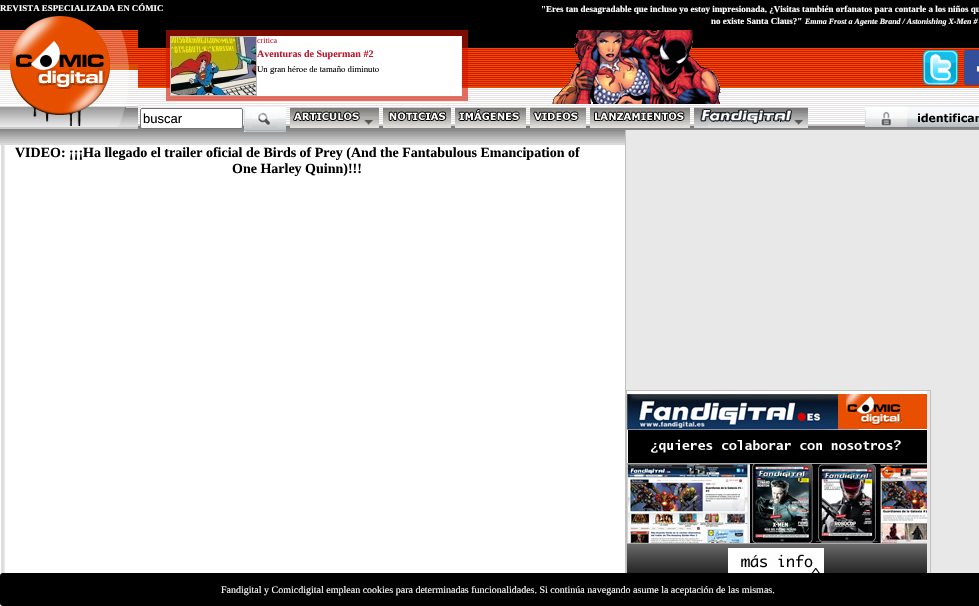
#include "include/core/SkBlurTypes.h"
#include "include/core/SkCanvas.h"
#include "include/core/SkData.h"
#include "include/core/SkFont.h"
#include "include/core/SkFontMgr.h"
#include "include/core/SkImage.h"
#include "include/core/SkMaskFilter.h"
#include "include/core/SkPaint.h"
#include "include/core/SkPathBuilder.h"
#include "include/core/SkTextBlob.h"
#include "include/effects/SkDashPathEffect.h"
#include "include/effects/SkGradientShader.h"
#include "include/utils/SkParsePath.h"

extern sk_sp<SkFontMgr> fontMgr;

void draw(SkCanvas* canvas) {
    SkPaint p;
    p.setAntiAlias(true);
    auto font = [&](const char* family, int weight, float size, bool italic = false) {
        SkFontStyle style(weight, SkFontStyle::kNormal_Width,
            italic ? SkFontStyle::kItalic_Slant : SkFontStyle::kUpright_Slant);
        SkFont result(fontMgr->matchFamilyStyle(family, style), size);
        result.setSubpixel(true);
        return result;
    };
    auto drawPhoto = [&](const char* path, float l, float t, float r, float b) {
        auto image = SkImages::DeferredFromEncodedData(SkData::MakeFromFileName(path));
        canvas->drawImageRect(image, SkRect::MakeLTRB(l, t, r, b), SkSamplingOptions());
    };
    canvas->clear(0xFF000000);
    drawPhoto("media/1.png", 0, 18, 979, 145);
    auto font1 = font("Liberation Serif", 700, 8.9f);
    p.setColor(0xFFFFFFFF);
    canvas->drawString("REVISTA ESPECIALIZADA EN CÓMIC", 0, 11, font1, p);
    auto font2 = font("Liberation Serif", 700, 9);
    canvas->drawString("\"Eres tan desagradable que incluso yo estoy impresionada. ¿Visitas también orfanatos para contarle a los niños qu", 541, 12, font2, p);
    canvas->drawString("no existe Santa Claus?\"", 711, 24, font2, p);
    auto font3 = font("Liberation Serif", 700, 8, true);
    canvas->drawString("Emma Frost a Agente Brand / Astonishing X-Men #", 805, 24, font3, p);
    p.setColor(0x99D21600);
    canvas->drawRect(SkRect::MakeLTRB(166, 30, 468, 101), p);
    p.setColor(0xFFFFFFFF);
    canvas->drawRect(SkRect::MakeLTRB(257, 36, 462, 96), p);
    p.setStyle(SkPaint::kStroke_Style);
    p.setStrokeWidth(1);
    p.setColor(0xFFBBBCB8);
    canvas->drawRect(SkRect::MakeLTRB(170.5f, 36.5f, 256.5f, 95.5f), p);
    drawPhoto("media/2.png", 171, 37, 256, 95);
    auto font4 = font("Liberation Serif", 400, 8);
    p.setStyle(SkPaint::kFill_Style);
    p.setColor(0xFFBD192D);
    canvas->drawString("critica", 257, 43, font4, p);
    auto font5 = font("Liberation Serif", 700, 10);
    canvas->drawString("Aventuras de Superman #2", 257, 57, font5, p);
    auto font6 = font("Liberation Serif", 400, 8.75f);
    p.setColor(0xFF000000);
    canvas->drawString("Un gran héroe de tamaño diminuto", 257, 72, font6, p);
    drawPhoto("media/3.png", 0, 16, 138, 129);
    drawPhoto("media/4.png", 552, 30, 721, 104);
    drawPhoto("media/5.png", 923, 50, 958, 85);
    drawPhoto("media/6.png", 964, 50, 979, 85);
    drawPhoto("media/7.png", 290, 107, 379, 128);
    drawPhoto("media/8.png", 383, 107, 451, 128);
    drawPhoto("media/9.png", 455, 107, 526, 128);
    drawPhoto("media/10.png", 530, 107, 586, 128);
    drawPhoto("media/11.png", 590, 107, 690, 128);
    drawPhoto("media/12.png", 694, 107, 808, 128);
    drawPhoto("media/13.png", 865, 106, 979, 127);
    p.setColor(0xFFFFFFFF);
    canvas->drawRoundRect(SkRect::MakeLTRB(140.5f, 108.5f, 242.5f, 128.5f), 1.5f, 1.5f, p);
    p.setStyle(SkPaint::kStroke_Style);
    p.setColor(0xFF767676);
    canvas->drawRoundRect(SkRect::MakeLTRB(140.5f, 108.5f, 242.5f, 128.5f), 1.5f, 1.5f, p);
    auto font7 = font("Liberation Sans", 400, 13);
    p.setStyle(SkPaint::kFill_Style);
    p.setColor(0xFF000000);
    canvas->drawString("buscar", 143, 123, font7, p);
    drawPhoto("media/14.png", 244, 106, 286, 132);
    p.setColor(0xFFFFFFFF);
    canvas->drawRect(SkRect::MakeLTRB(0, 145, 625, 606), p);
    drawPhoto("media/15.png", 1, 145, 5, 606);
    auto font8 = font("Liberation Serif", 700, 14);
    p.setColor(0xFF000000);
    canvas->drawString("VIDEO: ¡¡¡Ha llegado el trailer oficial de Birds of Prey (And the Fantabulous Emancipation of", 15, 157, font8, p);
    canvas->drawString("One Harley Quinn)!!!", 232, 173, font8, p);
    p.setColor(0xFFE8E8E8);
    canvas->drawRect(SkRect::MakeLTRB(626, 130, 979, 573), p);
    p.setColor(0xFFC0C0C0);
    canvas->drawRect(SkRect::MakeLTRB(625, 130, 626, 573), p);
    p.setStyle(SkPaint::kStroke_Style);
    p.setColor(0xFFBFBFBF);
    canvas->drawRect(SkRect::MakeLTRB(626.5f, 390.5f, 930.5f, 580.5f), p);
    drawPhoto("media/16.png", 627, 391, 927, 573);
    p.setStyle(SkPaint::kFill_Style);
    p.setColor(0xFF000000);
    canvas->drawRoundRect(SkRect::MakeLTRB(0, 573, 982, 606), 3, 3, p);
    auto font9 = font("Liberation Serif", 400, 10);
    p.setColor(0xFFFFFFFF);
    canvas->drawString("Fandigital y Comicdigital emplean cookies para determinadas funcionalidades. Si continúa navegando asume la aceptación de las mismas.", 221, 593, font9, p);
}
